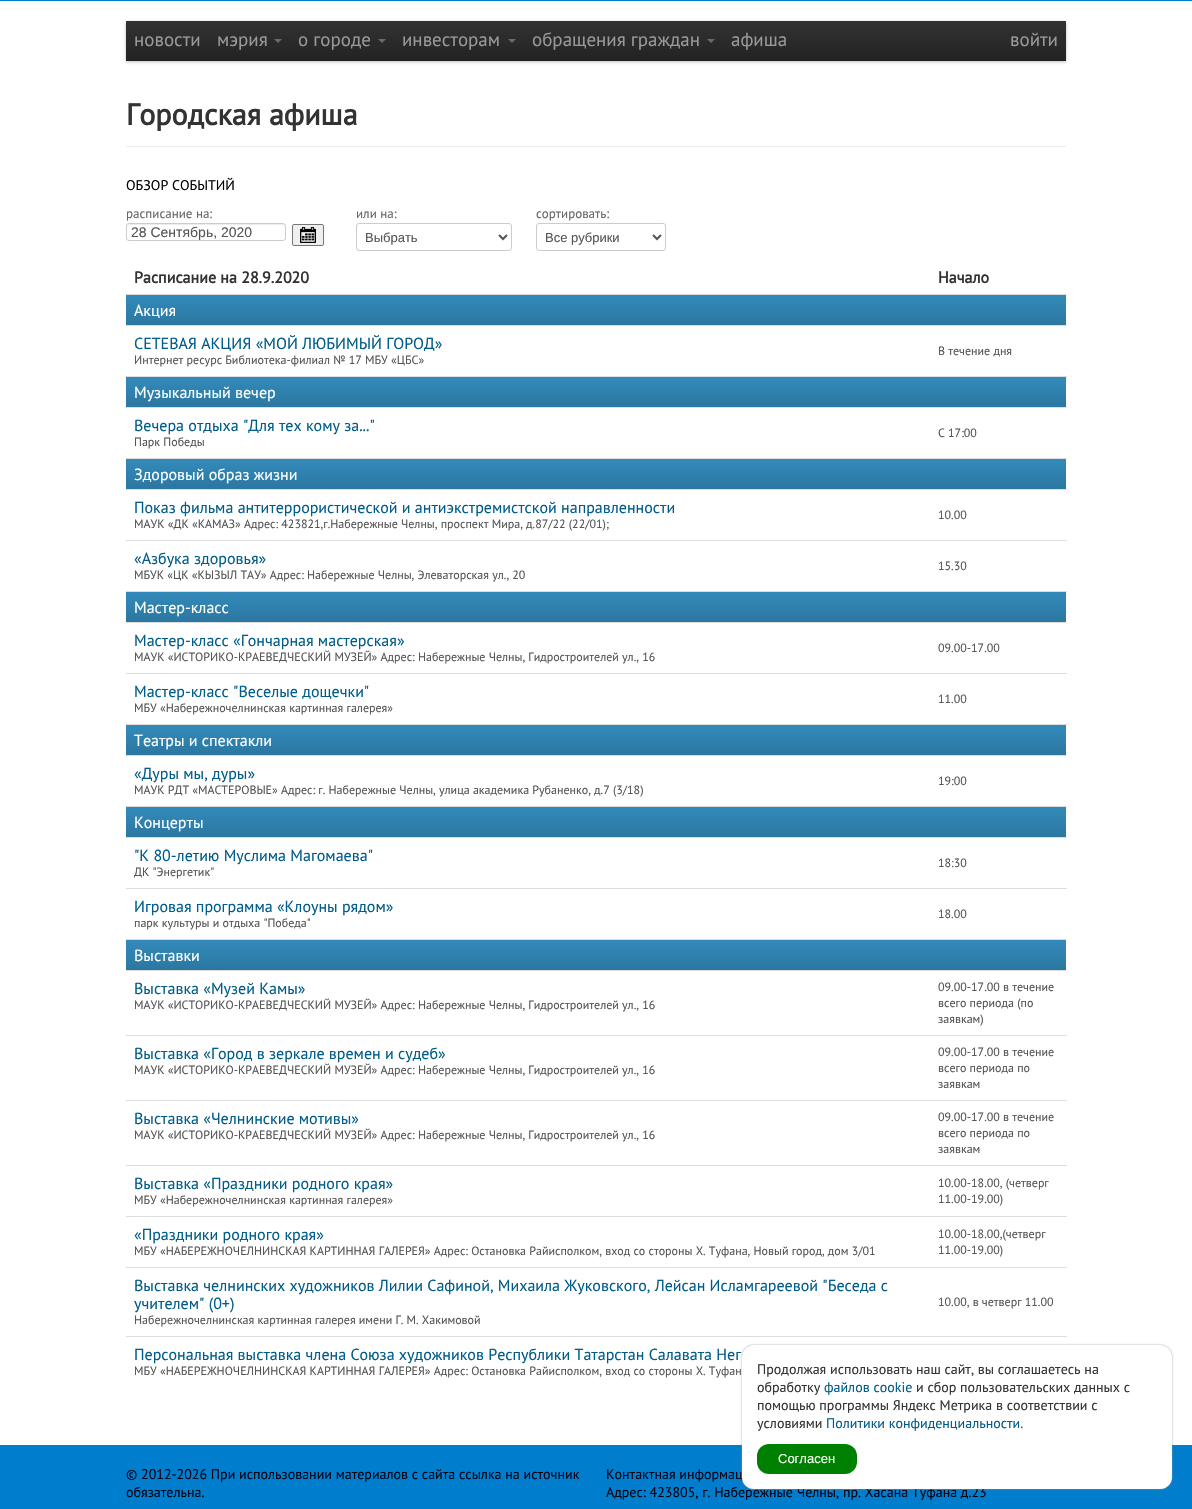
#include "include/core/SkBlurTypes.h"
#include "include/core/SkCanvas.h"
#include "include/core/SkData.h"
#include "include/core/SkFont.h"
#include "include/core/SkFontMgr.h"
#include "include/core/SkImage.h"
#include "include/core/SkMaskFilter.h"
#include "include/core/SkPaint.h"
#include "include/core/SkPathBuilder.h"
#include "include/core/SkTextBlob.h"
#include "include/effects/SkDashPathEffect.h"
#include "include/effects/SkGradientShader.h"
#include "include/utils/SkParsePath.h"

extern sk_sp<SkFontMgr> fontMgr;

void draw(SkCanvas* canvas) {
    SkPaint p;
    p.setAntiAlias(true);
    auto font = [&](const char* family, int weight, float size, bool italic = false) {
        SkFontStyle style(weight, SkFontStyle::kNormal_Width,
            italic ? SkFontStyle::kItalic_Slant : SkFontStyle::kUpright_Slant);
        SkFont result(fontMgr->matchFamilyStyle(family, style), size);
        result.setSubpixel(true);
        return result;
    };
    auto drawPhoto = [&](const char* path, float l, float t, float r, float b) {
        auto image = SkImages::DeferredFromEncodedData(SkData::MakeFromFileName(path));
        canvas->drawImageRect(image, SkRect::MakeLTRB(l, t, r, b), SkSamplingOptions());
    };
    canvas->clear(0xFFFFFFFF);
    p.setColor(0xFF007DCD);
    canvas->drawRect(SkRect::MakeLTRB(0, 0, 1192, 1), p);
    p.setColor(0x40000000);
    p.setMaskFilter(SkMaskFilter::MakeBlur(kNormal_SkBlurStyle, 1.5f));
    canvas->drawRect(SkRect::MakeLTRB(126, 22, 1066, 62), p);
    p.setMaskFilter(nullptr);
    {
        const SkColor colors[] = {0xFF333333, 0xFF222222};
        const float stops[] = {0, 1};
        const SkPoint ends[] = {{596, 21}, {596, 61}};
        p.setShader(SkGradientShader::MakeLinear(ends, colors, stops, 2, SkTileMode::kClamp));
        p.setAlpha(255);
    }
    canvas->drawRect(SkRect::MakeLTRB(126, 21, 1066, 60), p);
    p.setShader(nullptr);
    p.setColor(0xFF1F1F1F);
    canvas->drawRect(SkRect::MakeLTRB(126, 60, 1066, 61), p);
    auto font1 = font("PT Sans", 400, 19);
    p.setColor(0xFF999999);
    canvas->drawString("новости", 134, 46, font1, p);
    canvas->drawString("мэрия", 217, 46, font1, p);
    p.setColor(0xFF6A6A6A);
    canvas->drawPath(SkPathBuilder().moveTo(274, 39).lineTo(282, 39).lineTo(278, 43).close().detach(), p);
    p.setColor(0xFF999999);
    canvas->drawString("о городе", 298, 46, font1, p);
    p.setColor(0xFF6A6A6A);
    canvas->drawPath(SkPathBuilder().moveTo(378, 39).lineTo(386, 39).lineTo(382, 43).close().detach(), p);
    p.setColor(0xFF999999);
    canvas->drawString("инвесторам", 402, 46, font1, p);
    p.setColor(0xFF6A6A6A);
    canvas->drawPath(SkPathBuilder().moveTo(508, 39).lineTo(516, 39).lineTo(512, 43).close().detach(), p);
    p.setColor(0xFF999999);
    canvas->drawString("обращения граждан", 532, 46, font1, p);
    p.setColor(0xFF6A6A6A);
    canvas->drawPath(SkPathBuilder().moveTo(707, 39).lineTo(715, 39).lineTo(711, 43).close().detach(), p);
    p.setColor(0xFF999999);
    canvas->drawString("афиша", 731, 46, font1, p);
    canvas->drawString("войти", 1010, 46, font1, p);
    p.setColor(0xFFEEEEEE);
    canvas->drawRect(SkRect::MakeLTRB(126, 146, 1066, 147), p);
    auto font2 = font("PT Sans", 700, 30);
    p.setColor(0xFF333333);
    canvas->drawString("Городская афиша", 126, 125, font2, p);
    auto font3 = font("PT Sans", 400, 14);
    p.setColor(0xFF000000);
    canvas->drawString("ОБЗОР СОБЫТИЙ", 126, 190, font3, p);
    auto font4 = font("PT Sans", 400, 13);
    p.setColor(0xFF666666);
    canvas->drawString("расписание на:", 126, 218, font4, p);
    p.setColor(0xFFECECEC);
    canvas->drawPath(SkPathBuilder().moveTo(129, 225).lineTo(283, 225).cubicTo(284, 225, 285, 226, 285, 227).cubicTo(285, 226, 285, 224, 283, 224).lineTo(129, 224).lineTo(128, 225).lineTo(127, 227).cubicTo(127, 226, 128, 225, 129, 225).close().detach(), p);
    p.setStyle(SkPaint::kStroke_Style);
    p.setStrokeWidth(1);
    p.setColor(0xFFCCCCCC);
    canvas->drawRoundRect(SkRect::MakeLTRB(126.5f, 223.5f, 285.5f, 240.5f), 2.5f, 2.5f, p);
    auto font5 = font("Liberation Sans", 400, 14);
    p.setStyle(SkPaint::kFill_Style);
    p.setColor(0xFF555555);
    canvas->drawString("28 Сентябрь, 2020", 131, 237, font5, p);
    p.setColor(0xFFEFEFEF);
    canvas->drawRoundRect(SkRect::MakeLTRB(292.5f, 224.5f, 323.5f, 245.5f), 1.5f, 1.5f, p);
    p.setStyle(SkPaint::kStroke_Style);
    p.setColor(0xFF767676);
    canvas->drawRoundRect(SkRect::MakeLTRB(292.5f, 224.5f, 323.5f, 245.5f), 1.5f, 1.5f, p);
    drawPhoto("media/1.png", 300, 227, 316, 243);
    p.setStyle(SkPaint::kFill_Style);
    p.setColor(0xFF666666);
    canvas->drawString("или на:", 356, 218, font4, p);
    p.setStyle(SkPaint::kStroke_Style);
    p.setColor(0xFFCCCCCC);
    canvas->drawRoundRect(SkRect::MakeLTRB(356.5f, 223.5f, 511.5f, 250.5f), 2.5f, 2.5f, p);
    p.setStrokeWidth(2);
    p.setColor(0xFF555555);
    canvas->drawPath(SkPathBuilder().moveTo(499, 235).lineTo(503, 239).lineTo(507, 235).detach(), p);
    auto font6 = font("Liberation Sans", 400, 13);
    p.setStyle(SkPaint::kFill_Style);
    canvas->drawString("Выбрать", 365, 242, font6, p);
    p.setColor(0xFF666666);
    canvas->drawString("сортировать:", 536, 218, font4, p);
    p.setStyle(SkPaint::kStroke_Style);
    p.setStrokeWidth(1);
    p.setColor(0xFFCCCCCC);
    canvas->drawRoundRect(SkRect::MakeLTRB(536.5f, 223.5f, 665.5f, 250.5f), 2.5f, 2.5f, p);
    p.setStrokeWidth(2);
    p.setColor(0xFF555555);
    canvas->drawPath(SkPathBuilder().moveTo(653, 235).lineTo(657, 239).lineTo(661, 235).detach(), p);
    p.setStyle(SkPaint::kFill_Style);
    canvas->drawString("Все рубрики", 545, 242, font6, p);
    auto font7 = font("PT Sans", 700, 16);
    p.setColor(0xFF333333);
    canvas->drawString("Расписание на 28.9.2020", 134, 283, font7, p);
    canvas->drawString("Начало", 938, 283, font7, p);
    p.setColor(0xFFDDDDDD);
    canvas->drawRect(SkRect::MakeLTRB(126, 294, 1067, 295), p);
    drawPhoto("media/2.png", 126, 295, 1066, 325);
    auto font8 = font("PT Sans", 400, 16);
    p.setColor(0xFFFFFFFF);
    canvas->drawString("Акция", 134, 316, font8, p);
    p.setColor(0xFF005D8B);
    canvas->drawString("СЕТЕВАЯ АКЦИЯ «МОЙ ЛЮБИМЫЙ ГОРОД»", 134, 349, font8, p);
    auto font9 = font("PT Sans", 400, 12);
    p.setColor(0xFF555555);
    canvas->drawString("Интернет ресурс Библиотека-филиал № 17 МБУ «ЦБС»", 134, 364, font9, p);
    p.setColor(0xFFDDDDDD);
    canvas->drawRect(SkRect::MakeLTRB(126, 325, 1067, 326), p);
    p.setColor(0xFF555555);
    canvas->drawString("В течение дня", 938, 355, font9, p);
    p.setColor(0xFFDDDDDD);
    canvas->drawRect(SkRect::MakeLTRB(126, 376, 1067, 377), p);
    drawPhoto("media/2.png", 126, 377, 1066, 407);
    p.setColor(0xFFFFFFFF);
    canvas->drawString("Музыкальный вечер", 134, 398, font8, p);
    p.setColor(0xFF005D8B);
    canvas->drawString("Вечера отдыха \"Для тех кому за...\"", 134, 431, font8, p);
    p.setColor(0xFF555555);
    canvas->drawString("Парк Победы", 134, 446, font9, p);
    p.setColor(0xFFDDDDDD);
    canvas->drawRect(SkRect::MakeLTRB(126, 407, 1067, 408), p);
    p.setColor(0xFF555555);
    canvas->drawString("С 17:00", 938, 437, font9, p);
    p.setColor(0xFFDDDDDD);
    canvas->drawRect(SkRect::MakeLTRB(126, 458, 1067, 459), p);
    drawPhoto("media/2.png", 126, 459, 1066, 489);
    p.setColor(0xFFFFFFFF);
    canvas->drawString("Здоровый образ жизни", 134, 480, font8, p);
    p.setColor(0xFF005D8B);
    canvas->drawString("Показ фильма антитеррористической и антиэкстремистской направленности", 134, 513, font8, p);
    p.setColor(0xFF555555);
    canvas->drawString("МАУК «ДК «КАМАЗ» Адрес: 423821,г.Набережные Челны, проспект Мира, д.87/22 (22/01);", 134, 528, font9, p);
    p.setColor(0xFFDDDDDD);
    canvas->drawRect(SkRect::MakeLTRB(126, 489, 1067, 490), p);
    p.setColor(0xFF555555);
    canvas->drawString("10.00", 938, 519, font9, p);
    p.setColor(0xFF005D8B);
    canvas->drawString("«Азбука здоровья»", 134, 564, font8, p);
    p.setColor(0xFF555555);
    canvas->drawString("МБУК «ЦК «КЫЗЫЛ ТАУ» Адрес: Набережные Челны, Элеваторская ул., 20", 134, 579, font9, p);
    p.setColor(0xFFDDDDDD);
    canvas->drawRect(SkRect::MakeLTRB(126, 540, 1067, 541), p);
    p.setColor(0xFF555555);
    canvas->drawString("15.30", 938, 570, font9, p);
    p.setColor(0xFFDDDDDD);
    canvas->drawRect(SkRect::MakeLTRB(126, 591, 1067, 592), p);
    drawPhoto("media/2.png", 126, 592, 1066, 622);
    p.setColor(0xFFFFFFFF);
    canvas->drawString("Мастер-класс", 134, 613, font8, p);
    p.setColor(0xFF005D8B);
    canvas->drawString("Мастер-класс «Гончарная мастерская»", 134, 646, font8, p);
    p.setColor(0xFF555555);
    canvas->drawString("МАУК «ИСТОРИКО-КРАЕВЕДЧЕСКИЙ МУЗЕЙ» Адрес: Набережные Челны, Гидростроителей ул., 16", 134, 661, font9, p);
    p.setColor(0xFFDDDDDD);
    canvas->drawRect(SkRect::MakeLTRB(126, 622, 1067, 623), p);
    p.setColor(0xFF555555);
    canvas->drawString("09.00-17.00", 938, 652, font9, p);
    p.setColor(0xFF005D8B);
    canvas->drawString("Мастер-класс \"Веселые дощечки\"", 134, 697, font8, p);
    p.setColor(0xFF555555);
    canvas->drawString("МБУ «Набережночелнинская картинная галерея»", 134, 712, font9, p);
    p.setColor(0xFFDDDDDD);
    canvas->drawRect(SkRect::MakeLTRB(126, 673, 1067, 674), p);
    p.setColor(0xFF555555);
    canvas->drawString("11.00", 938, 703, font9, p);
    p.setColor(0xFFDDDDDD);
    canvas->drawRect(SkRect::MakeLTRB(126, 724, 1067, 725), p);
    drawPhoto("media/2.png", 126, 725, 1066, 755);
    p.setColor(0xFFFFFFFF);
    canvas->drawString("Театры и спектакли", 134, 746, font8, p);
    p.setColor(0xFF005D8B);
    canvas->drawString("«Дуры мы, дуры»", 134, 779, font8, p);
    p.setColor(0xFF555555);
    canvas->drawString("МАУК РДТ «МАСТЕРОВЫЕ» Адрес: г. Набережные Челны, улица академика Рубаненко, д.7 (3/18)", 134, 794, font9, p);
    p.setColor(0xFFDDDDDD);
    canvas->drawRect(SkRect::MakeLTRB(126, 755, 1067, 756), p);
    p.setColor(0xFF555555);
    canvas->drawString("19:00", 938, 785, font9, p);
    p.setColor(0xFFDDDDDD);
    canvas->drawRect(SkRect::MakeLTRB(126, 806, 1067, 807), p);
    drawPhoto("media/2.png", 126, 807, 1066, 837);
    p.setColor(0xFFFFFFFF);
    canvas->drawString("Концерты", 134, 828, font8, p);
    p.setColor(0xFF005D8B);
    canvas->drawString("\"К 80-летию Муслима Магомаева\"", 134, 861, font8, p);
    p.setColor(0xFF555555);
    canvas->drawString("ДК \"Энергетик\"", 134, 876, font9, p);
    p.setColor(0xFFDDDDDD);
    canvas->drawRect(SkRect::MakeLTRB(126, 837, 1067, 838), p);
    p.setColor(0xFF555555);
    canvas->drawString("18:30", 938, 867, font9, p);
    p.setColor(0xFF005D8B);
    canvas->drawString("Игровая программа «Клоуны рядом»", 134, 912, font8, p);
    p.setColor(0xFF555555);
    canvas->drawString("парк культуры и отдыха \"Победа\"", 134, 927, font9, p);
    p.setColor(0xFFDDDDDD);
    canvas->drawRect(SkRect::MakeLTRB(126, 888, 1067, 889), p);
    p.setColor(0xFF555555);
    canvas->drawString("18.00", 938, 918, font9, p);
    p.setColor(0xFFDDDDDD);
    canvas->drawRect(SkRect::MakeLTRB(126, 939, 1067, 940), p);
    drawPhoto("media/2.png", 126, 940, 1066, 970);
    p.setColor(0xFFFFFFFF);
    canvas->drawString("Выставки", 134, 961, font8, p);
    p.setColor(0xFF005D8B);
    canvas->drawString("Выставка «Музей Камы»", 134, 994, font8, p);
    p.setColor(0xFF555555);
    canvas->drawString("МАУК «ИСТОРИКО-КРАЕВЕДЧЕСКИЙ МУЗЕЙ» Адрес: Набережные Челны, Гидростроителей ул., 16", 134, 1009, font9, p);
    p.setColor(0xFFDDDDDD);
    canvas->drawRect(SkRect::MakeLTRB(126, 970, 1067, 971), p);
    p.setColor(0xFF555555);
    {
        const struct { const char* s; float x, y; } items[] = {
            {"09.00-17.00 в течение", 938, 991},
            {"всего периода (по", 938, 1007},
            {"заявкам)", 938, 1023},
        };
        for (auto [s, x, y] : items) {
            canvas->drawString(s, x, y, font9, p);
        }
    }
    p.setColor(0xFF005D8B);
    canvas->drawString("Выставка «Город в зеркале времен и судеб»", 134, 1059, font8, p);
    p.setColor(0xFF555555);
    canvas->drawString("МАУК «ИСТОРИКО-КРАЕВЕДЧЕСКИЙ МУЗЕЙ» Адрес: Набережные Челны, Гидростроителей ул., 16", 134, 1074, font9, p);
    p.setColor(0xFFDDDDDD);
    canvas->drawRect(SkRect::MakeLTRB(126, 1035, 1067, 1036), p);
    p.setColor(0xFF555555);
    {
        const struct { const char* s; float x, y; } items[] = {
            {"09.00-17.00 в течение", 938, 1056},
            {"всего периода по", 938, 1072},
            {"заявкам", 938, 1088},
        };
        for (auto [s, x, y] : items) {
            canvas->drawString(s, x, y, font9, p);
        }
    }
    p.setColor(0xFF005D8B);
    canvas->drawString("Выставка «Челнинские мотивы»", 134, 1124, font8, p);
    p.setColor(0xFF555555);
    canvas->drawString("МАУК «ИСТОРИКО-КРАЕВЕДЧЕСКИЙ МУЗЕЙ» Адрес: Набережные Челны, Гидростроителей ул., 16", 134, 1139, font9, p);
    p.setColor(0xFFDDDDDD);
    canvas->drawRect(SkRect::MakeLTRB(126, 1100, 1067, 1101), p);
    p.setColor(0xFF555555);
    {
        const struct { const char* s; float x, y; } items[] = {
            {"09.00-17.00 в течение", 938, 1121},
            {"всего периода по", 938, 1137},
            {"заявкам", 938, 1153},
        };
        for (auto [s, x, y] : items) {
            canvas->drawString(s, x, y, font9, p);
        }
    }
    p.setColor(0xFF005D8B);
    canvas->drawString("Выставка «Праздники родного края»", 134, 1189, font8, p);
    p.setColor(0xFF555555);
    canvas->drawString("МБУ «Набережночелнинская картинная галерея»", 134, 1204, font9, p);
    p.setColor(0xFFDDDDDD);
    canvas->drawRect(SkRect::MakeLTRB(126, 1165, 1067, 1166), p);
    p.setColor(0xFF555555);
    canvas->drawString("10.00-18.00, (четверг", 938, 1187, font9, p);
    canvas->drawString("11.00-19.00)", 938, 1203, font9, p);
    p.setColor(0xFF005D8B);
    canvas->drawString("«Праздники родного края»", 134, 1240, font8, p);
    p.setColor(0xFF555555);
    canvas->drawString("МБУ «НАБЕРЕЖНОЧЕЛНИНСКАЯ КАРТИННАЯ ГАЛЕРЕЯ» Адрес: Остановка Райисполком, вход со стороны Х. Туфана, Новый город, дом 3/01", 134, 1255, font9, p);
    p.setColor(0xFFDDDDDD);
    canvas->drawRect(SkRect::MakeLTRB(126, 1216, 1067, 1217), p);
    p.setColor(0xFF555555);
    canvas->drawString("10.00-18.00,(четверг", 938, 1238, font9, p);
    canvas->drawString("11.00-19.00)", 938, 1254, font9, p);
    p.setColor(0xFF005D8B);
    canvas->drawString("Выставка челнинских художников Лилии Сафиной, Михаила Жуковского, Лейсан Исламгареевой \"Беседа с", 134, 1291, font8, p);
    canvas->drawString("учителем\" (0+)", 134, 1309, font8, p);
    p.setColor(0xFF555555);
    canvas->drawString("Набережночелнинская картинная галерея имени Г. М. Хакимовой", 134, 1324, font9, p);
    p.setColor(0xFFDDDDDD);
    canvas->drawRect(SkRect::MakeLTRB(126, 1267, 1067, 1268), p);
    p.setColor(0xFF555555);
    canvas->drawString("10.00, в четверг 11.00", 938, 1306, font9, p);
    p.setColor(0xFFDDDDDD);
    canvas->drawRect(SkRect::MakeLTRB(126, 1336, 1067, 1337), p);
    p.setColor(0xFF005D8B);
    canvas->drawString("Персональная выставка члена Союза художников Республики Татарстан Салавата Нег", 134, 1360, font8, p);
    p.setColor(0xFF555555);
    canvas->drawString("МБУ «НАБЕРЕЖНОЧЕЛНИНСКАЯ КАРТИННАЯ ГАЛЕРЕЯ» Адрес: Остановка Райисполком, вход со стороны Х. Туфан", 134, 1375, font9, p);
    p.setColor(0xFF007DCD);
    canvas->drawRect(SkRect::MakeLTRB(0, 1445, 1192, 1509), p);
    p.setColor(0xFF000314);
    {
        const struct { const char* s; float x, y; } items[] = {
            {"© 2012-2026 При использовании материалов с сайта ссылка на источник", 126, 1479},
            {"обязательна.", 126, 1497},
            {"Контактная информац", 606, 1479},
            {"Адрес: 423805, г. Набережные Челны, пр. Хасана Туфана д.23", 606, 1497},
        };
        for (auto [s, x, y] : items) {
            canvas->drawString(s, x, y, font3, p);
        }
    }
    p.setColor(0xFF989898);
    p.setMaskFilter(SkMaskFilter::MakeBlur(kNormal_SkBlurStyle, 1));
    canvas->drawRoundRect(SkRect::MakeLTRB(742, 1345, 1172, 1489), 12, 12, p);
    p.setMaskFilter(nullptr);
    p.setColor(0xFFFFFFFF);
    canvas->drawRoundRect(SkRect::MakeLTRB(742, 1345, 1172, 1489), 12, 12, p);
    p.setColor(0xFF333333);
    canvas->drawString("Продолжая использовать наш сайт, вы соглашаетесь на", 757, 1374, font3, p);
    canvas->drawString("обработку", 757, 1392, font3, p);
    p.setColor(0xFF005D8B);
    canvas->drawString("файлов cookie", 824, 1392, font3, p);
    p.setColor(0xFF333333);
    {
        const struct { const char* s; float x, y; } items[] = {
            {"и сбор пользовательских данных с", 916, 1392},
            {"помощью программы Яндекс Метрика в соответствии с", 757, 1410},
            {"условиями", 757, 1428},
        };
        for (auto [s, x, y] : items) {
            canvas->drawString(s, x, y, font3, p);
        }
    }
    p.setColor(0xFF005D8B);
    canvas->drawString("Политики конфиденциальности.", 826, 1428, font3, p);
    p.setColor(0xFF008000);
    canvas->drawRoundRect(SkRect::MakeLTRB(757, 1444, 857, 1474), 12, 12, p);
    p.setColor(0xFFFFFFFF);
    canvas->drawString("Согласен", 778, 1463, font6, p);
}
